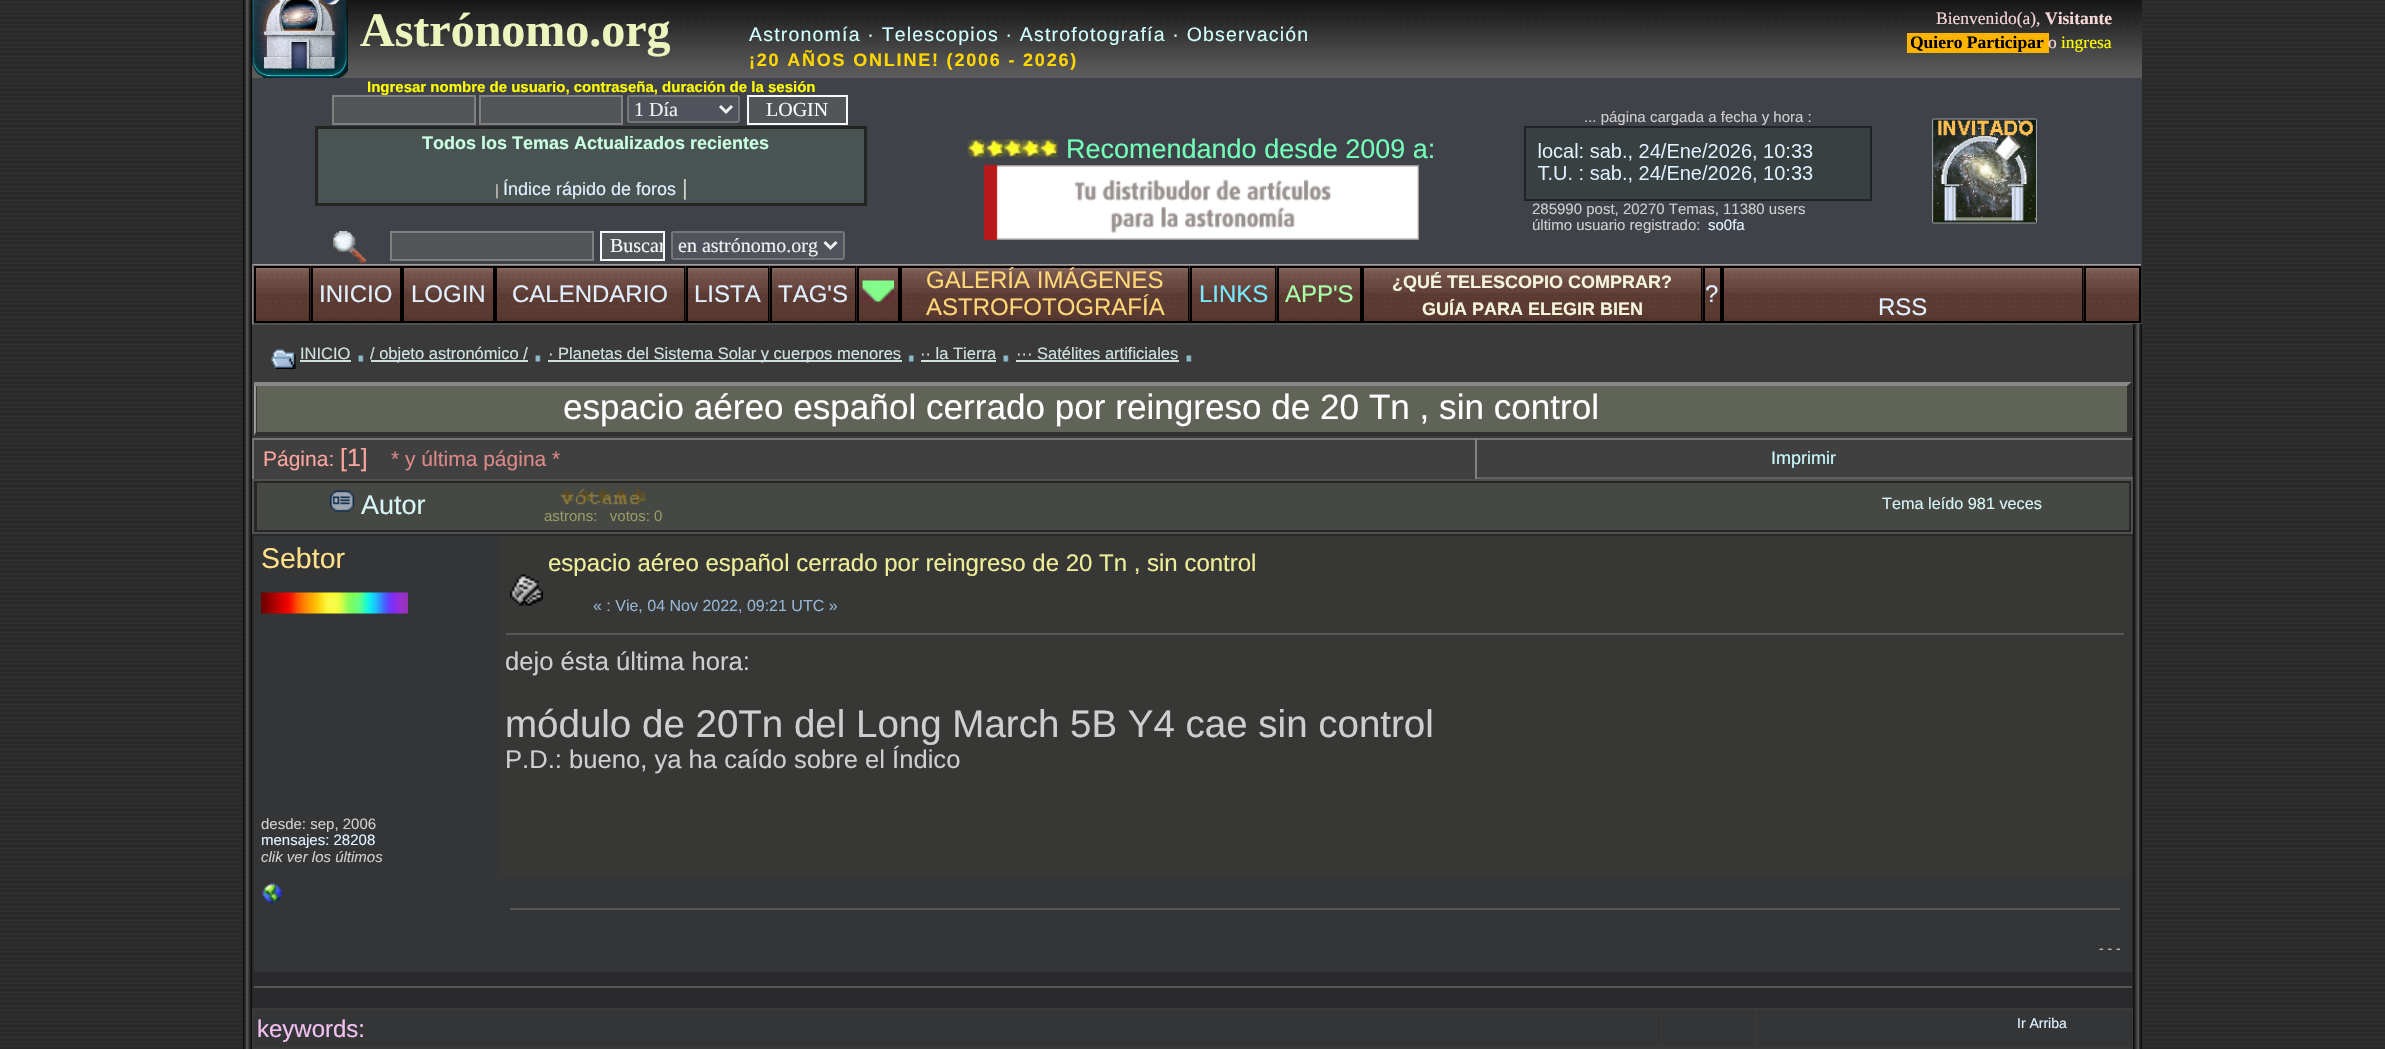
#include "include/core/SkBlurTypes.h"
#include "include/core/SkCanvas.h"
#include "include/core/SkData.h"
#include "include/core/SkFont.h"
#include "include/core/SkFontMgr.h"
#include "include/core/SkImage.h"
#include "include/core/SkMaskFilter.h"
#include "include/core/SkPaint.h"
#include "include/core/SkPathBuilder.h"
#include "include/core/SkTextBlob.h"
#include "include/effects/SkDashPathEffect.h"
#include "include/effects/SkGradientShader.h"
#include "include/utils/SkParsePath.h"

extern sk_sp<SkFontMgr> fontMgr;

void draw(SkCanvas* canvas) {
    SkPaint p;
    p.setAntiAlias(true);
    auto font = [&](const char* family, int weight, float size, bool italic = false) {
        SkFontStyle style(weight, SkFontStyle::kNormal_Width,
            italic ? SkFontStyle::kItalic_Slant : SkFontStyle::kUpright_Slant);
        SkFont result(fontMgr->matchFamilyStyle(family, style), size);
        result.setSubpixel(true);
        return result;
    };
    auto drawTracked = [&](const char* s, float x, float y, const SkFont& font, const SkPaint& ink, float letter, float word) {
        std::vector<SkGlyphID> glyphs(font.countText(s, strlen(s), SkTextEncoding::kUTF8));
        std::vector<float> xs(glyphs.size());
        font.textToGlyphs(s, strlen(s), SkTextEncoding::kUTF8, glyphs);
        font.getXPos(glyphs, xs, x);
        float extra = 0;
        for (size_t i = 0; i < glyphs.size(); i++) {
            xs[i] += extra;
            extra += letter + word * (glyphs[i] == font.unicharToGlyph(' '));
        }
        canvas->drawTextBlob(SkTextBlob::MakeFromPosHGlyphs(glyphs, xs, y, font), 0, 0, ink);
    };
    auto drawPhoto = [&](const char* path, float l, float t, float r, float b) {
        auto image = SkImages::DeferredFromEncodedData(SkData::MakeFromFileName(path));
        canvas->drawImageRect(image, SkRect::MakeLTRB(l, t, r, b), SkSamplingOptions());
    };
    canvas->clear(0xFFFFFFFF);
    drawPhoto("media/1.png", 0, 0, 2385, 1049);
    drawPhoto("media/2.png", 243, 0, 252, 1049);
    p.setColor(0xFF3A3A3A);
    canvas->drawRect(SkRect::MakeLTRB(252, 325, 2133, 1049), p);
    drawPhoto("media/3.png", 252, 0, 2142, 78);
    drawPhoto("media/4.png", 252, 0, 348, 78);
    auto font1 = font("Liberation Serif", 700, 48);
    p.setColor(0xFFEBF5BE);
    canvas->drawString("Astrónomo.org", 360, 46, font1, p);
    auto font2 = font("Liberation Sans", 400, 19.5f);
    p.setColor(0xFFD1FFFF);
    drawTracked("Astronomía · Telescopios · Astrofotografía · Observación", 749, 41, font2, p, 1.2f, 0);
    auto font3 = font("Liberation Sans", 700, 18);
    p.setColor(0xFFFFD700);
    drawTracked("¡20 AÑOS ONLINE! (2006 - 2026)", 749, 66, font3, p, 1.8f, 0);
    auto font4 = font("Liberation Serif", 400, 17.5f);
    p.setColor(0xFFF6D6D6);
    canvas->drawString("Bienvenido(a),", 1936, 24, font4, p);
    auto font5 = font("Liberation Serif", 700, 17.5f);
    canvas->drawString("Visitante", 2045, 24, font5, p);
    p.setColor(0xFFFFB500);
    canvas->drawRect(SkRect::MakeLTRB(1907, 33, 2049, 53), p);
    p.setColor(0xFF000000);
    canvas->drawString("Quiero Participar", 1910, 48, font5, p);
    p.setColor(0xFFF6D6D6);
    canvas->drawString("o", 2048, 48, font4, p);
    p.setColor(0xFFFFFF00);
    canvas->drawString("ingresa", 2061, 48, font4, p);
    p.setColor(0xFF3F4248);
    canvas->drawRect(SkRect::MakeLTRB(252, 78, 2142, 264), p);
    auto font6 = font("Liberation Sans", 700, 15);
    p.setColor(0xFFFFFF00);
    canvas->drawString("Ingresar nombre de usuario, contraseña, duración de la sesión", 367, 92, font6, p);
    p.setColor(0xFF535658);
    canvas->drawRect(SkRect::MakeLTRB(333, 96, 475, 124), p);
    p.setStyle(SkPaint::kStroke_Style);
    p.setStrokeWidth(2);
    p.setColor(0xFF808080);
    canvas->drawRect(SkRect::MakeLTRB(333, 96, 475, 124), p);
    p.setStyle(SkPaint::kFill_Style);
    p.setColor(0xFF535658);
    canvas->drawRect(SkRect::MakeLTRB(480, 96, 622, 124), p);
    p.setStyle(SkPaint::kStroke_Style);
    p.setColor(0xFF808080);
    canvas->drawRect(SkRect::MakeLTRB(480, 96, 622, 124), p);
    p.setStyle(SkPaint::kFill_Style);
    p.setColor(0xFF50535B);
    canvas->drawRoundRect(SkRect::MakeLTRB(628, 96, 739, 122), 2, 2, p);
    p.setStyle(SkPaint::kStroke_Style);
    p.setColor(0xFF767676);
    canvas->drawRoundRect(SkRect::MakeLTRB(628, 96, 739, 122), 2, 2, p);
    p.setStrokeWidth(3);
    p.setColor(0xFFF0F0F0);
    canvas->drawPath(SkPathBuilder().moveTo(720, 106).lineTo(726, 112).lineTo(732, 106).detach(), p);
    auto font7 = font("Liberation Serif", 400, 20);
    p.setStyle(SkPaint::kFill_Style);
    canvas->drawString("1 Día", 634, 116, font7, p);
    p.setColor(0xFF535658);
    canvas->drawRect(SkRect::MakeLTRB(748, 96, 847, 124), p);
    p.setStyle(SkPaint::kStroke_Style);
    p.setStrokeWidth(2);
    p.setColor(0xFFF8F8F8);
    canvas->drawRect(SkRect::MakeLTRB(748, 96, 847, 124), p);
    p.setStyle(SkPaint::kFill_Style);
    canvas->drawString("LOGIN", 766, 116, font7, p);
    p.setColor(0xFF485352);
    canvas->drawRect(SkRect::MakeLTRB(316.5f, 127.5f, 865.5f, 204.5f), p);
    p.setStyle(SkPaint::kStroke_Style);
    p.setStrokeWidth(3);
    p.setColor(0xFF242422);
    canvas->drawRect(SkRect::MakeLTRB(316.5f, 127.5f, 865.5f, 204.5f), p);
    p.setStyle(SkPaint::kFill_Style);
    p.setColor(0xFFCBFFE3);
    canvas->drawString("Todos los Temas Actualizados recientes", 422, 149, font3, p);
    auto font8 = font("Liberation Sans", 400, 15);
    p.setColor(0xFFCFCDCD);
    canvas->drawString("|", 495, 195, font8, p);
    auto font9 = font("Liberation Sans", 400, 18);
    p.setColor(0xFFE0F0FF);
    canvas->drawString("Índice rápido de foros", 503, 195, font9, p);
    auto font10 = font("Liberation Sans", 400, 22);
    p.setColor(0xFFCFCDCD);
    canvas->drawString("|", 682, 195, font10, p);
    drawPhoto("media/5.png", 333, 231, 366, 264);
    p.setColor(0xFF535658);
    canvas->drawRect(SkRect::MakeLTRB(391, 232, 593, 260), p);
    p.setStyle(SkPaint::kStroke_Style);
    p.setStrokeWidth(2);
    p.setColor(0xFF808080);
    canvas->drawRect(SkRect::MakeLTRB(391, 232, 593, 260), p);
    p.setStyle(SkPaint::kFill_Style);
    p.setColor(0xFF535658);
    canvas->drawRect(SkRect::MakeLTRB(601, 232, 664, 260), p);
    p.setStyle(SkPaint::kStroke_Style);
    p.setColor(0xFFF8F8F8);
    canvas->drawRect(SkRect::MakeLTRB(601, 232, 664, 260), p);
    canvas->save();
    canvas->clipRect(SkRect::MakeLTRB(602, 233, 663, 260));
    p.setStyle(SkPaint::kFill_Style);
    canvas->drawString("Buscar", 610, 252, font7, p);
    canvas->restore();
    p.setColor(0xFF50535B);
    canvas->drawRoundRect(SkRect::MakeLTRB(672, 232, 844, 259), 2, 2, p);
    p.setStyle(SkPaint::kStroke_Style);
    p.setColor(0xFF767676);
    canvas->drawRoundRect(SkRect::MakeLTRB(672, 232, 844, 259), 2, 2, p);
    p.setStrokeWidth(3);
    p.setColor(0xFFF0F0F0);
    canvas->drawPath(SkPathBuilder().moveTo(824.5f, 242).lineTo(830.5f, 248).lineTo(836.5f, 242).detach(), p);
    p.setStyle(SkPaint::kFill_Style);
    canvas->drawString("en astrónomo.org", 678, 252, font7, p);
    drawPhoto("media/6.png", 967, 139, 1058, 158);
    auto font11 = font("Liberation Sans", 400, 27);
    p.setColor(0xFF73FFB9);
    canvas->drawString("Recomendando desde 2009 a:", 1066, 158, font11, p);
    drawPhoto("media/7.png", 984, 165, 1419, 240);
    p.setColor(0xFFCFCDCD);
    canvas->drawString("... página cargada a fecha y hora :", 1584, 122, font8, p);
    p.setStyle(SkPaint::kStroke_Style);
    p.setStrokeWidth(2);
    p.setColor(0xFF202028);
    canvas->drawRect(SkRect::MakeLTRB(1525, 127, 1871, 200), p);
    drawPhoto("media/8.png", 1525, 127, 1871, 200);
    p.setStyle(SkPaint::kFill_Style);
    p.setColor(0xFFCFCDCD);
    canvas->drawString("285990 post, 20270 Temas, 11380 users", 1532, 214, font8, p);
    canvas->drawString("último usuario registrado:", 1532, 230, font8, p);
    p.setColor(0xFFE0F0FF);
    canvas->drawString("so0fa", 1708, 230, font8, p);
    drawPhoto("media/9.png", 1932, 118, 2037, 224);
    {
        const struct { float l, t, r, b; SkColor color; } items[] = {
            {252, 264, 2142, 266, 0xFFA0A0A0},
            {2141, 264, 2143, 324, 0xFF303030},
            {252, 323, 2142, 325, 0xFF505050},
            {252, 264, 254, 324, 0xFF808080},
        };
        for (auto [l, t, r, b, color] : items) {
            p.setColor(color);
            canvas->drawRect(SkRect::MakeLTRB(l, t, r, b), p);
        }
    }
    drawPhoto("media/10.png", 253, 265, 311, 323);
    p.setStyle(SkPaint::kStroke_Style);
    p.setColor(0xFF000000);
    canvas->drawRect(SkRect::MakeLTRB(255, 267, 310, 322), p);
    drawPhoto("media/11.png", 310, 265, 402, 323);
    canvas->drawRect(SkRect::MakeLTRB(312, 267, 401, 322), p);
    auto font12 = font("Liberation Sans", 400, 24);
    p.setStyle(SkPaint::kFill_Style);
    p.setColor(0xFFE0F0FF);
    canvas->drawString("INICIO", 319, 302, font12, p);
    drawPhoto("media/12.png", 402, 265, 495, 321);
    p.setStyle(SkPaint::kStroke_Style);
    p.setColor(0xFF000000);
    canvas->drawRect(SkRect::MakeLTRB(403, 267, 494, 322), p);
    p.setStyle(SkPaint::kFill_Style);
    p.setColor(0xFFE0F0FF);
    canvas->drawString("LOGIN", 411, 302, font12, p);
    drawPhoto("media/13.png", 495, 265, 686, 321);
    p.setStyle(SkPaint::kStroke_Style);
    p.setColor(0xFF000000);
    canvas->drawRect(SkRect::MakeLTRB(496, 267, 685, 322), p);
    p.setStyle(SkPaint::kFill_Style);
    p.setColor(0xFFE0F0FF);
    canvas->drawString("CALENDARIO", 512, 302, font12, p);
    drawPhoto("media/14.png", 685, 265, 770, 323);
    p.setStyle(SkPaint::kStroke_Style);
    p.setColor(0xFF000000);
    canvas->drawRect(SkRect::MakeLTRB(687, 267, 769, 322), p);
    p.setStyle(SkPaint::kFill_Style);
    p.setColor(0xFFE0F0FF);
    canvas->drawString("LISTA", 694, 302, font12, p);
    drawPhoto("media/15.png", 769, 265, 857, 323);
    p.setStyle(SkPaint::kStroke_Style);
    p.setColor(0xFF000000);
    canvas->drawRect(SkRect::MakeLTRB(771, 267, 856, 322), p);
    p.setStyle(SkPaint::kFill_Style);
    p.setColor(0xFFE0F0FF);
    canvas->drawString("TAG'S", 778, 302, font12, p);
    drawPhoto("media/16.png", 856, 265, 900, 323);
    p.setStyle(SkPaint::kStroke_Style);
    p.setColor(0xFF000000);
    canvas->drawRect(SkRect::MakeLTRB(858, 267, 899, 322), p);
    drawPhoto("media/17.png", 862, 280, 894, 302);
    drawPhoto("media/18.png", 900, 265, 1190, 321);
    canvas->drawRect(SkRect::MakeLTRB(901, 267, 1189, 322), p);
    p.setStyle(SkPaint::kFill_Style);
    p.setColor(0xFFFFD777);
    canvas->drawString("GALERÍA IMÁGENES", 926, 288, font12, p);
    canvas->drawString("ASTROFOTOGRAFÍA", 926, 315, font12, p);
    drawPhoto("media/19.png", 1189, 265, 1277, 323);
    p.setStyle(SkPaint::kStroke_Style);
    p.setColor(0xFF000000);
    canvas->drawRect(SkRect::MakeLTRB(1191, 267, 1276, 322), p);
    p.setStyle(SkPaint::kFill_Style);
    p.setColor(0xFF77E8FF);
    canvas->drawString("LINKS", 1199, 302, font12, p);
    drawPhoto("media/20.png", 1276, 265, 1362, 323);
    p.setStyle(SkPaint::kStroke_Style);
    p.setColor(0xFF000000);
    canvas->drawRect(SkRect::MakeLTRB(1278, 267, 1361, 322), p);
    p.setStyle(SkPaint::kFill_Style);
    p.setColor(0xFFAAFFAA);
    canvas->drawString("APP'S", 1285, 302, font12, p);
    drawPhoto("media/21.png", 1362, 265, 1703, 321);
    p.setStyle(SkPaint::kStroke_Style);
    p.setColor(0xFF000000);
    canvas->drawRect(SkRect::MakeLTRB(1363, 267, 1702, 322), p);
    p.setStyle(SkPaint::kFill_Style);
    p.setColor(0xFFF5F5DC);
    canvas->drawString("¿QUÉ TELESCOPIO COMPRAR?", 1392, 288, font3, p);
    canvas->drawString("GUÍA PARA ELEGIR BIEN", 1422, 315, font3, p);
    drawPhoto("media/22.png", 1702, 265, 1722, 323);
    p.setStyle(SkPaint::kStroke_Style);
    p.setColor(0xFF000000);
    canvas->drawRect(SkRect::MakeLTRB(1704, 267, 1721, 322), p);
    p.setStyle(SkPaint::kFill_Style);
    p.setColor(0xFFE0F0FF);
    canvas->drawString("?", 1705, 302, font12, p);
    drawPhoto("media/24.png", 1722, 265, 2084, 321);
    p.setStyle(SkPaint::kStroke_Style);
    p.setColor(0xFF000000);
    canvas->drawRect(SkRect::MakeLTRB(1723, 267, 2083, 322), p);
    drawPhoto("media/23.png", 2083, 265, 2141, 323);
    canvas->drawRect(SkRect::MakeLTRB(2085, 267, 2140, 322), p);
    p.setStyle(SkPaint::kFill_Style);
    p.setColor(0xFFE0F0FF);
    canvas->drawString("RSS", 1878, 315, font12, p);
    drawPhoto("media/25.png", 271, 349, 296, 369);
    auto font13 = font("Liberation Sans", 400, 16.5f);
    p.setColor(0xFFD0E0E0);
    canvas->drawString("INICIO", 300, 359, font13, p);
    canvas->drawRect(SkRect::MakeLTRB(300, 360, 351, 362), p);
    drawPhoto("media/26.png", 358, 355, 364, 362);
    canvas->drawRect(SkRect::MakeLTRB(371, 360, 528, 362), p);
    canvas->drawString("/ objeto astronómico /", 370, 359, font13, p);
    drawPhoto("media/26.png", 535, 355, 541, 362);
    canvas->drawRect(SkRect::MakeLTRB(548, 360, 902, 362), p);
    canvas->drawString("· Planetas del Sistema Solar y cuerpos menores", 548, 359, font13, p);
    drawPhoto("media/27.png", 908, 355, 914, 362);
    canvas->drawString("·· la Tierra", 920, 359, font13, p);
    canvas->drawRect(SkRect::MakeLTRB(921, 360, 996, 362), p);
    drawPhoto("media/28.png", 1003, 355, 1009, 362);
    canvas->drawString("··· Satélites artificiales", 1016, 359, font13, p);
    canvas->drawRect(SkRect::MakeLTRB(1016, 360, 1179, 362), p);
    drawPhoto("media/26.png", 1186, 355, 1192, 362);
    p.setColor(0xFF606358);
    canvas->drawRect(SkRect::MakeLTRB(257, 386, 2127, 432), p);
    p.setColor(0xFF888888);
    canvas->drawPath(SkPathBuilder().moveTo(254, 382).lineTo(2132, 382).lineTo(2127, 386).lineTo(256, 386).close().detach(), p);
    p.setColor(0xFF303030);
    canvas->drawPath(SkPathBuilder().moveTo(2132, 382).lineTo(2132, 436).lineTo(2127, 432).lineTo(2127, 386).close().detach(), p);
    canvas->drawPath(SkPathBuilder().moveTo(2132, 436).lineTo(254, 436).lineTo(256, 432).lineTo(2127, 432).close().detach(), p);
    p.setColor(0xFF989898);
    canvas->drawPath(SkPathBuilder().moveTo(254, 436).lineTo(254, 382).lineTo(256, 386).lineTo(256, 432).close().detach(), p);
    auto font14 = font("Liberation Sans", 400, 35.1f);
    p.setColor(0xFFFFFFFF);
    canvas->drawString("espacio aéreo español cerrado por reingreso de 20 Tn , sin control", 563, 419, font14, p);
    {
        const struct { float l, t, r, b; SkColor color; } items[] = {
            {254, 440, 1475, 479, 0xFF404040},
            {252, 438, 2133, 440, 0xFF757575},
            {252, 438, 254, 479, 0xFF757575},
        };
        for (auto [l, t, r, b, color] : items) {
            p.setColor(color);
            canvas->drawRect(SkRect::MakeLTRB(l, t, r, b), p);
        }
    }
    auto font15 = font("Liberation Sans", 400, 21);
    p.setColor(0xFFFBA59E);
    canvas->drawString("Página:", 263, 466, font15, p);
    auto font16 = font("Liberation Sans", 400, 25);
    canvas->drawString("[1]", 340, 466, font16, p);
    p.setColor(0xFFDB8888);
    canvas->drawString("* y última página *", 391, 466, font15, p);
    {
        const struct { float l, t, r, b; SkColor color; } items[] = {
            {1477, 440, 2132, 477, 0xFF404040},
            {2132, 438, 2133, 479, 0xFF303030},
            {1475, 477, 2133, 479, 0xFF606361},
            {1475, 438, 1477, 479, 0xFF808080},
        };
        for (auto [l, t, r, b, color] : items) {
            p.setColor(color);
            canvas->drawRect(SkRect::MakeLTRB(l, t, r, b), p);
        }
    }
    p.setColor(0xFFC9FBFF);
    canvas->drawString("Imprimir", 1771, 464, font9, p);
    p.setColor(0xFF272728);
    canvas->drawRect(SkRect::MakeLTRB(253, 480, 2132, 533), p);
    p.setStyle(SkPaint::kStroke_Style);
    p.setColor(0xFF505050);
    canvas->drawRect(SkRect::MakeLTRB(253, 480, 2132, 533), p);
    p.setStyle(SkPaint::kFill_Style);
    p.setColor(0xFF454843);
    canvas->drawRect(SkRect::MakeLTRB(257, 483, 2129, 530), p);
    drawPhoto("media/29.png", 330, 490, 354, 512);
    p.setColor(0xFFD7F5F5);
    canvas->drawString("Autor", 361, 514, font11, p);
    auto font17 = font("Liberation Sans", 400, 16.25f);
    canvas->drawString("Tema leído 981 veces", 1882, 509, font17, p);
    drawPhoto("media/30.png", 560, 488, 646, 505);
    p.setColor(0xFF999966);
    canvas->drawString("astrons:   votos: 0", 544, 521, font8, p);
    p.setColor(0xFF2A2A2D);
    canvas->drawRect(SkRect::MakeLTRB(252, 534, 2133, 1008), p);
    p.setColor(0xFF343536);
    canvas->drawRect(SkRect::MakeLTRB(254, 536, 2132, 972), p);
    auto font18 = font("Liberation Sans", 400, 28.5f);
    p.setColor(0xFFFFDF87);
    canvas->drawString("Sebtor", 261, 568, font18, p);
    drawPhoto("media/31.png", 261, 592, 408, 614);
    p.setColor(0xFFCFCDCD);
    canvas->drawString("desde: sep, 2006", 261, 829, font8, p);
    p.setColor(0xFFE0F0FF);
    canvas->drawString("mensajes: 28208", 261, 845, font8, p);
    auto font19 = font("Liberation Sans", 400, 15, true);
    p.setColor(0xFFCFCDCD);
    canvas->drawString("clik ver los últimos", 261, 862, font19, p);
    drawPhoto("media/32.png", 262, 883, 283, 904);
    p.setColor(0xFF373736);
    canvas->drawRect(SkRect::MakeLTRB(498, 536, 2132, 876), p);
    drawPhoto("media/33.png", 510, 574, 543, 606);
    p.setColor(0xFFEEEE99);
    canvas->drawString("espacio aéreo español cerrado por reingreso de 20 Tn , sin control", 548, 571, font12, p);
    auto font20 = font("Liberation Sans", 400, 16);
    p.setColor(0xFF95B5D3);
    canvas->drawString("« : Vie, 04 Nov 2022, 09:21 UTC »", 593, 611, font20, p);
    p.setColor(0xFF565656);
    canvas->drawRect(SkRect::MakeLTRB(506, 633, 2124, 635), p);
    canvas->save();
    canvas->clipRect(SkRect::MakeLTRB(506, 648, 2124, 869));
    auto font21 = font("Liberation Sans", 400, 25.6f);
    p.setColor(0xFFCFCDCD);
    canvas->drawString("dejo ésta última hora:", 505, 670, font21, p);
    canvas->restore();
    auto font22 = font("Liberation Sans", 400, 38.5f);
    canvas->drawString("módulo de 20Tn del Long March 5B Y4 cae sin control", 505, 737, font22, p);
    canvas->drawString("P.D.: bueno, ya ha caído sobre el Índico", 505, 768, font21, p);
    p.setColor(0xFF565656);
    canvas->drawRect(SkRect::MakeLTRB(510, 908, 2120, 910), p);
    auto font23 = font("Liberation Sans", 400, 14);
    p.setColor(0xFFCFCDCD);
    canvas->drawString("- - -", 2099, 953, font23, p);
    p.setColor(0xFF565656);
    canvas->drawRect(SkRect::MakeLTRB(254, 986, 2132, 988), p);
    p.setColor(0xFF343536);
    canvas->drawRect(SkRect::MakeLTRB(254, 1010, 1661, 1047), p);
    p.setColor(0xFFF0C0F0);
    canvas->drawString("keywords:", 257, 1037, font12, p);
    p.setColor(0xFF343536);
    canvas->drawRect(SkRect::MakeLTRB(1662, 1010, 1755, 1047), p);
    canvas->drawRect(SkRect::MakeLTRB(1757, 1010, 2132, 1047), p);
    p.setColor(0xFFE0F0FF);
    canvas->drawString("Ir Arriba", 2017, 1028, font23, p);
    drawPhoto("media/34.png", 2133, 324, 2142, 1049);
}
